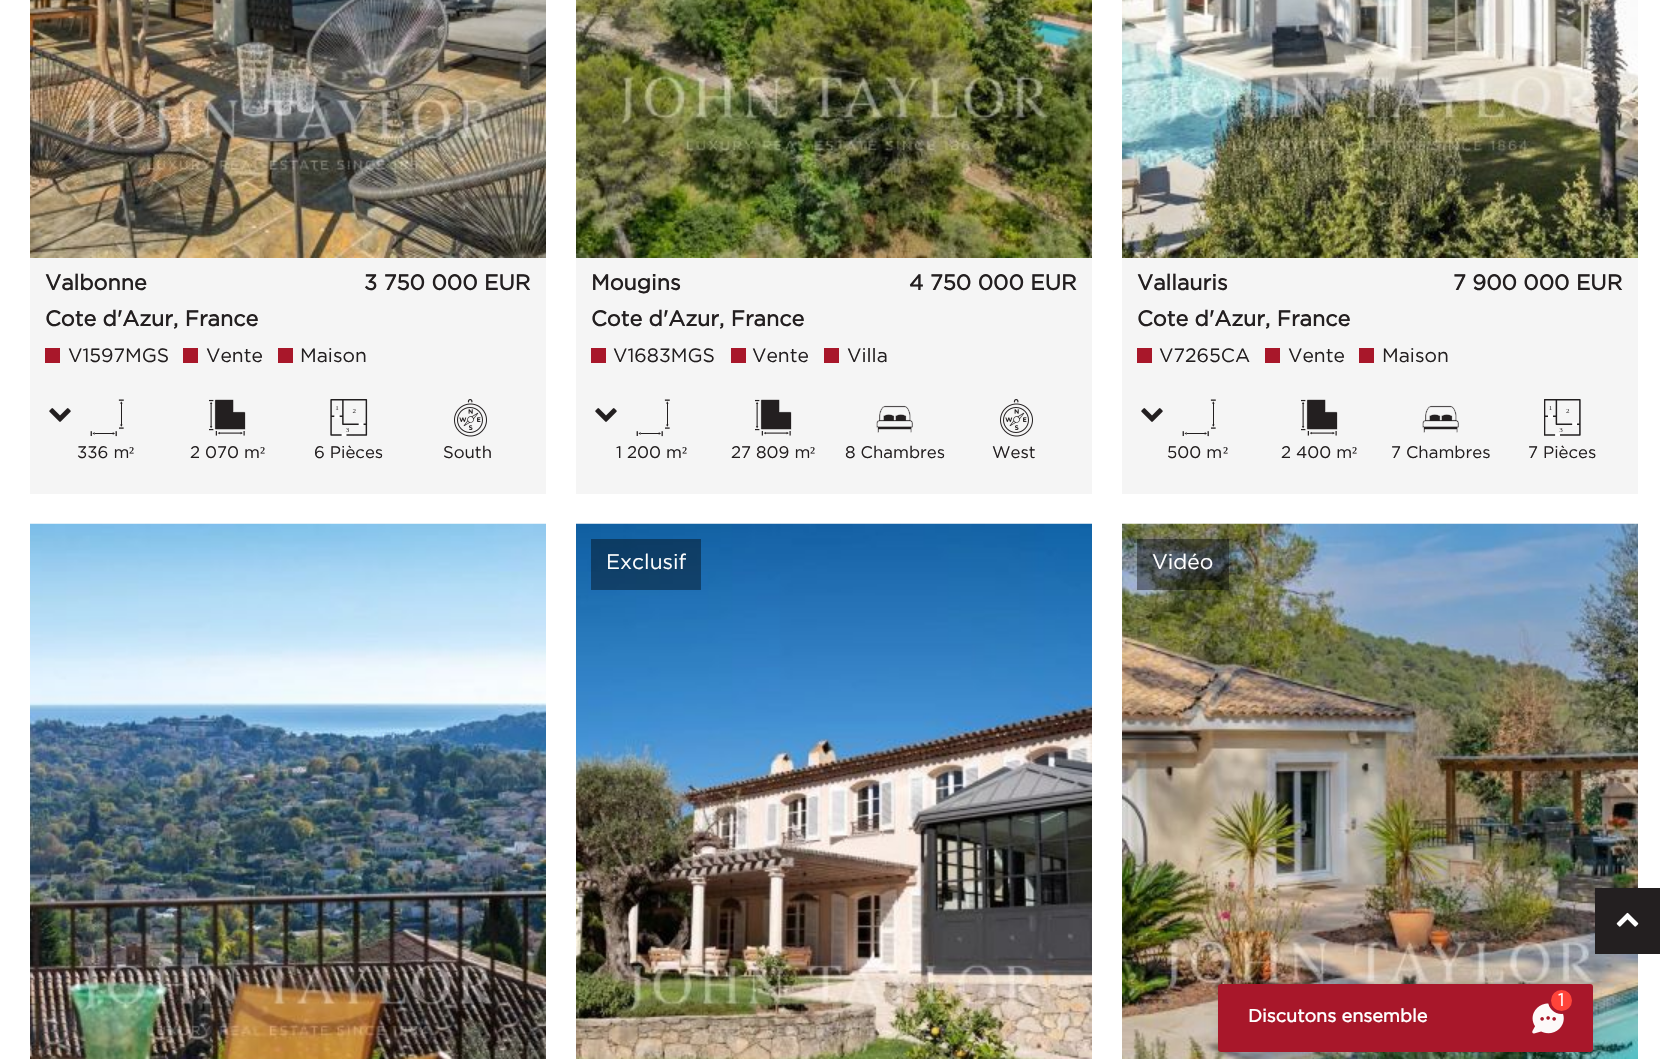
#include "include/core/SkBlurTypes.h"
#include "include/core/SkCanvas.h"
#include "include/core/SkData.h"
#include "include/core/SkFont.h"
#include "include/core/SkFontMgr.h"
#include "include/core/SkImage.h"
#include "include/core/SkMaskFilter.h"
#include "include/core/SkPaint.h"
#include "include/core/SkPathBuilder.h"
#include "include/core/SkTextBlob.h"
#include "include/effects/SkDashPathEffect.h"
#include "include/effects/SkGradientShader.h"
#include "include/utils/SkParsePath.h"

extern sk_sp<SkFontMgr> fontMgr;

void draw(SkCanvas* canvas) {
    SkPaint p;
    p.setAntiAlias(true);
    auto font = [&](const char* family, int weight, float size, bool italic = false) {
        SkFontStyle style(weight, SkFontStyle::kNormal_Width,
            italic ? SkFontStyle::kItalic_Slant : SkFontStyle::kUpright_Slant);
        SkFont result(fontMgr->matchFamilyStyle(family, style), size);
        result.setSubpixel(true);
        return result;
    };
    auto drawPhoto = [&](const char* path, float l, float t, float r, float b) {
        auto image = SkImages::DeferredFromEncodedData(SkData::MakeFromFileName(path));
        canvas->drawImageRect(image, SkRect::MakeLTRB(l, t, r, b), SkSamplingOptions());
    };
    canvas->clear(0xFFFFFFFF);
    p.setColor(0xFFF5F5F5);
    canvas->drawRect(SkRect::MakeLTRB(30, 258, 546, 494), p);
    drawPhoto("media/1.png", 30, 0, 546, 258);
    auto font1 = font("Gotham", 700, 21.5f);
    p.setColor(0xFF231F20);
    {
        const struct { const char* s; float x, y; } items[] = {
            {"Valbonne", 45, 290},
            {"Cote d'Azur, France", 45, 326},
            {"3 750 000 EUR", 364, 290},
        };
        for (auto [s, x, y] : items) {
            canvas->drawString(s, x, y, font1, p);
        }
    }
    p.setColor(0xFFA8172A);
    canvas->drawRect(SkRect::MakeLTRB(45, 348, 60, 363), p);
    auto font2 = font("Gotham", 400, 19.25f);
    p.setColor(0xFF231F20);
    canvas->drawString("V1597MGS", 68, 362, font2, p);
    p.setColor(0xFFA8172A);
    canvas->drawRect(SkRect::MakeLTRB(183, 348, 198, 363), p);
    p.setColor(0xFF231F20);
    canvas->drawString("Vente", 206, 362, font2, p);
    p.setColor(0xFFA8172A);
    canvas->drawRect(SkRect::MakeLTRB(278, 348, 293, 363), p);
    p.setColor(0xFF231F20);
    canvas->drawString("Maison", 300, 362, font2, p);
    drawPhoto("media/2.png", 49, 408, 71, 422);
    drawPhoto("media/3.png", 90, 399, 124, 437);
    auto font3 = font("Gotham", 400, 16.75f);
    canvas->drawString("336 m", 77, 458, font3, p);
    auto font4 = font("Liberation Serif", 400, 16.75f);
    canvas->drawString("²", 129, 458, font4, p);
    drawPhoto("media/4.png", 209, 399, 246, 436);
    canvas->drawString("2 070 m", 190, 458, font3, p);
    canvas->drawString("²", 260, 458, font4, p);
    drawPhoto("media/5.png", 330, 399, 368, 436);
    canvas->drawString("6 Pièces", 314, 458, font3, p);
    drawPhoto("media/6.png", 454, 399, 487, 437);
    canvas->drawString("South", 443, 458, font3, p);
    p.setColor(0xFFF5F5F5);
    canvas->drawRect(SkRect::MakeLTRB(576, 258, 1092, 494), p);
    drawPhoto("media/7.png", 576, 0, 1092, 258);
    p.setColor(0xFF231F20);
    {
        const struct { const char* s; float x, y; } items[] = {
            {"Mougins", 591, 290},
            {"Cote d'Azur, France", 591, 326},
            {"4 750 000 EUR", 909, 290},
        };
        for (auto [s, x, y] : items) {
            canvas->drawString(s, x, y, font1, p);
        }
    }
    p.setColor(0xFFA8172A);
    canvas->drawRect(SkRect::MakeLTRB(591, 348, 606, 363), p);
    p.setColor(0xFF231F20);
    canvas->drawString("V1683MGS", 613, 362, font2, p);
    p.setColor(0xFFA8172A);
    canvas->drawRect(SkRect::MakeLTRB(731, 348, 746, 363), p);
    p.setColor(0xFF231F20);
    canvas->drawString("Vente", 752, 362, font2, p);
    p.setColor(0xFFA8172A);
    canvas->drawRect(SkRect::MakeLTRB(824, 348, 839, 363), p);
    p.setColor(0xFF231F20);
    canvas->drawString("Villa", 847, 362, font2, p);
    drawPhoto("media/2.png", 595, 408, 617, 422);
    drawPhoto("media/3.png", 636, 399, 670, 437);
    canvas->drawString("1 200 m", 616, 458, font3, p);
    canvas->drawString("²", 682, 458, font4, p);
    drawPhoto("media/4.png", 755, 399, 792, 436);
    canvas->drawString("27 809 m", 731, 458, font3, p);
    canvas->drawString("²", 810, 458, font4, p);
    drawPhoto("media/8.png", 876, 405, 913, 433);
    canvas->drawString("8 Chambres", 845, 458, font3, p);
    drawPhoto("media/6.png", 1000, 399, 1033, 437);
    canvas->drawString("West", 992, 458, font3, p);
    p.setColor(0xFFF5F5F5);
    canvas->drawRect(SkRect::MakeLTRB(1122, 258, 1638, 494), p);
    drawPhoto("media/9.png", 1122, 0, 1638, 258);
    p.setColor(0xFF231F20);
    {
        const struct { const char* s; float x, y; } items[] = {
            {"Vallauris", 1137, 290},
            {"Cote d'Azur, France", 1137, 326},
            {"7 900 000 EUR", 1453, 290},
        };
        for (auto [s, x, y] : items) {
            canvas->drawString(s, x, y, font1, p);
        }
    }
    p.setColor(0xFFA8172A);
    canvas->drawRect(SkRect::MakeLTRB(1137, 348, 1152, 363), p);
    p.setColor(0xFF231F20);
    canvas->drawString("V7265CA", 1159, 362, font2, p);
    p.setColor(0xFFA8172A);
    canvas->drawRect(SkRect::MakeLTRB(1265, 348, 1280, 363), p);
    p.setColor(0xFF231F20);
    canvas->drawString("Vente", 1288, 362, font2, p);
    p.setColor(0xFFA8172A);
    canvas->drawRect(SkRect::MakeLTRB(1359, 348, 1374, 363), p);
    p.setColor(0xFF231F20);
    canvas->drawString("Maison", 1382, 362, font2, p);
    drawPhoto("media/2.png", 1141, 408, 1163, 422);
    drawPhoto("media/3.png", 1182, 399, 1216, 437);
    canvas->drawString("500 m", 1167, 458, font3, p);
    canvas->drawString("²", 1223, 458, font4, p);
    drawPhoto("media/4.png", 1301, 399, 1338, 436);
    canvas->drawString("2 400 m", 1281, 458, font3, p);
    canvas->drawString("²", 1352, 458, font4, p);
    drawPhoto("media/8.png", 1422, 405, 1459, 433);
    canvas->drawString("7 Chambres", 1391, 458, font3, p);
    drawPhoto("media/10.png", 1544, 399, 1581, 436);
    canvas->drawString("7 Pièces", 1528, 458, font3, p);
    drawPhoto("media/11.png", 30, 523, 546, 1059);
    drawPhoto("media/12.png", 576, 523, 1092, 1059);
    p.setColor(0x66000000);
    canvas->drawRect(SkRect::MakeLTRB(591, 539, 701, 590), p);
    auto font5 = font("Gotham", 400, 21);
    p.setColor(0xFFFFFFFF);
    canvas->drawString("Exclusif", 606, 569, font5, p);
    drawPhoto("media/13.png", 1122, 523, 1638, 1059);
    p.setColor(0x66000000);
    canvas->drawRect(SkRect::MakeLTRB(1137, 539, 1229, 590), p);
    p.setColor(0xFFFFFFFF);
    canvas->drawString("Vidéo", 1152, 569, font5, p);
    p.setColor(0xFF231F20);
    canvas->drawRect(SkRect::MakeLTRB(1595, 888, 1660, 954), p);
    drawPhoto("media/14.png", 1616, 912, 1639, 927);
    p.setColor(0x1A000000);
    p.setMaskFilter(SkMaskFilter::MakeBlur(kNormal_SkBlurStyle, 6));
    canvas->drawRoundRect(SkRect::MakeLTRB(1218, 981, 1593, 1049), 3, 3, p);
    p.setMaskFilter(nullptr);
    p.setColor(0xFFA8172A);
    canvas->drawRoundRect(SkRect::MakeLTRB(1218, 984, 1593, 1052), 3, 3, p);
    drawPhoto("media/15.png", 1532, 1003, 1564, 1034);
    p.setColor(0xFFFF443A);
    canvas->drawCircle(1561.5f, 1000.5f, 12, p);
    p.setStyle(SkPaint::kStroke_Style);
    p.setStrokeWidth(3);
    p.setColor(0xFFA8172A);
    canvas->drawCircle(1561.5f, 1000.5f, 12, p);
    auto font6 = font("Gotham", 400, 18);
    p.setStyle(SkPaint::kFill_Style);
    p.setColor(0xFFFFFFFF);
    canvas->drawString("1", 1558, 1006, font6, p);
    auto font7 = font("Gotham", 700, 18);
    canvas->drawString("Discutons ensemble", 1248, 1022, font7, p);
}
